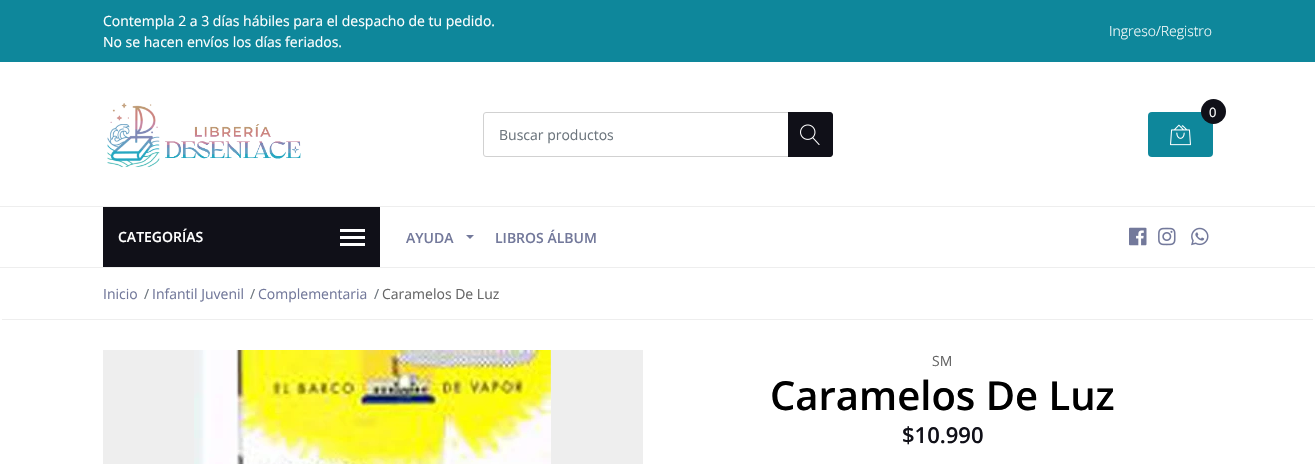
#include "include/core/SkBlurTypes.h"
#include "include/core/SkCanvas.h"
#include "include/core/SkData.h"
#include "include/core/SkFont.h"
#include "include/core/SkFontMgr.h"
#include "include/core/SkImage.h"
#include "include/core/SkMaskFilter.h"
#include "include/core/SkPaint.h"
#include "include/core/SkPathBuilder.h"
#include "include/core/SkTextBlob.h"
#include "include/effects/SkDashPathEffect.h"
#include "include/effects/SkGradientShader.h"
#include "include/utils/SkParsePath.h"

extern sk_sp<SkFontMgr> fontMgr;

void draw(SkCanvas* canvas) {
    SkPaint p;
    p.setAntiAlias(true);
    auto font = [&](const char* family, int weight, float size, bool italic = false) {
        SkFontStyle style(weight, SkFontStyle::kNormal_Width,
            italic ? SkFontStyle::kItalic_Slant : SkFontStyle::kUpright_Slant);
        SkFont result(fontMgr->matchFamilyStyle(family, style), size);
        result.setSubpixel(true);
        return result;
    };
    auto drawPhoto = [&](const char* path, float l, float t, float r, float b) {
        auto image = SkImages::DeferredFromEncodedData(SkData::MakeFromFileName(path));
        canvas->drawImageRect(image, SkRect::MakeLTRB(l, t, r, b), SkSamplingOptions());
    };
    canvas->clear(0xFFFFFFFF);
    p.setColor(0xFF0E879B);
    canvas->drawRect(SkRect::MakeLTRB(0, 0, 1315, 62), p);
    auto font1 = font("Open Sans", 400, 14);
    p.setColor(0xFFFFFFFF);
    canvas->drawString("Contempla 2 a 3 días hábiles para el despacho de tu pedido.", 103, 26, font1, p);
    canvas->drawString("No se hacen envíos los días feriados.", 103, 47, font1, p);
    auto font2 = font("Open Sans", 300, 14);
    canvas->drawString("Ingreso/Registro", 1109, 36, font2, p);
    drawPhoto("media/1.png", 107, 103, 301, 170);
    p.setColor(0xFF0E879B);
    canvas->drawRoundRect(SkRect::MakeLTRB(1148, 112, 1213, 157), 4, 4, p);
    p.setColor(0xFF101018);
    canvas->drawCircle(1213.5f, 111.5f, 12.5f, p);
    auto font3 = font("Open Sans", 400, 13);
    p.setColor(0xFFFFFFFF);
    canvas->drawString("0", 1209, 117, font3, p);
    drawPhoto("media/2.png", 1170, 124, 1191, 146);
    p.setStyle(SkPaint::kStroke_Style);
    p.setStrokeWidth(1);
    p.setColor(0xFFD1D1D1);
    canvas->drawRoundRect(SkRect::MakeLTRB(483.5f, 112.5f, 832.5f, 156.5f), 2.5f, 2.5f, p);
    p.setStyle(SkPaint::kFill_Style);
    p.setColor(0xFF6C757D);
    canvas->drawString("Buscar productos", 499, 140, font1, p);
    p.setColor(0xFF101018);
    canvas->drawPath(SkPathBuilder().moveTo(788, 112).lineTo(830, 112).cubicTo(831.5f, 112, 833, 113.5f, 833, 115).lineTo(833, 154).cubicTo(833, 155.5f, 831.5f, 157, 830, 157).lineTo(788, 157).close().detach(), p);
    drawPhoto("media/3.png", 800, 124, 820, 145);
    {
        const struct { float l, t, r, b; SkColor color; } items[] = {
            {0, 206, 1315, 207, 0xFFEEEEEE},
            {0, 267, 1315, 268, 0xFFEEEEEE},
            {103, 207, 380, 267, 0xFF101018},
        };
        for (auto [l, t, r, b, color] : items) {
            p.setColor(color);
            canvas->drawRect(SkRect::MakeLTRB(l, t, r, b), p);
        }
    }
    auto font4 = font("Open Sans", 600, 14);
    p.setColor(0xFFFFFFFF);
    canvas->drawString("CATEGORÍAS", 118, 242, font4, p);
    {
        const struct { float l, t, r, b; SkColor color; } items[] = {
            {340, 229, 365, 232, 0xFFFFFFFF},
            {340, 236, 365, 239, 0xFFFFFFFF},
            {340, 243, 365, 246, 0xFFFFFFFF},
        };
        for (auto [l, t, r, b, color] : items) {
            p.setColor(color);
            canvas->drawRect(SkRect::MakeLTRB(l, t, r, b), p);
        }
    }
    p.setColor(0xFF73799B);
    canvas->drawString("AYUDA", 406, 243, font4, p);
    canvas->drawPath(SkPathBuilder().moveTo(466, 235).lineTo(474, 235).lineTo(470, 239).close().detach(), p);
    canvas->drawString("LIBROS ÁLBUM", 495, 243, font4, p);
    drawPhoto("media/4.png", 1129, 227, 1147, 246);
    drawPhoto("media/5.png", 1158, 227, 1176, 246);
    drawPhoto("media/6.png", 1191, 227, 1209, 246);
    p.setColor(0xFFEEEEEE);
    canvas->drawRect(SkRect::MakeLTRB(2, 319, 1313, 320), p);
    p.setColor(0xFF73799B);
    canvas->drawString("Inicio", 103, 299, font1, p);
    p.setColor(0xFF6C757D);
    canvas->drawString("/", 144, 299, font1, p);
    p.setColor(0xFF73799B);
    canvas->drawString("Infantil Juvenil", 152, 299, font1, p);
    p.setColor(0xFF6C757D);
    canvas->drawString("/", 250, 299, font1, p);
    p.setColor(0xFF73799B);
    canvas->drawString("Complementaria", 258, 299, font1, p);
    p.setColor(0xFF6C757D);
    canvas->drawString("/", 374, 299, font1, p);
    p.setColor(0xFF666666);
    canvas->drawString("Caramelos De Luz", 382, 299, font1, p);
    p.setColor(0xFFEEEEEE);
    canvas->drawRect(SkRect::MakeLTRB(103, 350, 643, 464), p);
    drawPhoto("media/7.png", 194, 350, 551, 464);
    p.setColor(0xFF666666);
    canvas->drawString("SM", 932, 366, font1, p);
    auto font5 = font("Open Sans", 600, 40);
    p.setColor(0xFF000000);
    canvas->drawString("Caramelos De Luz", 770, 410, font5, p);
    auto font6 = font("Open Sans", 600, 22);
    p.setColor(0xFF101018);
    canvas->drawString("$10.990", 902, 443, font6, p);
}
